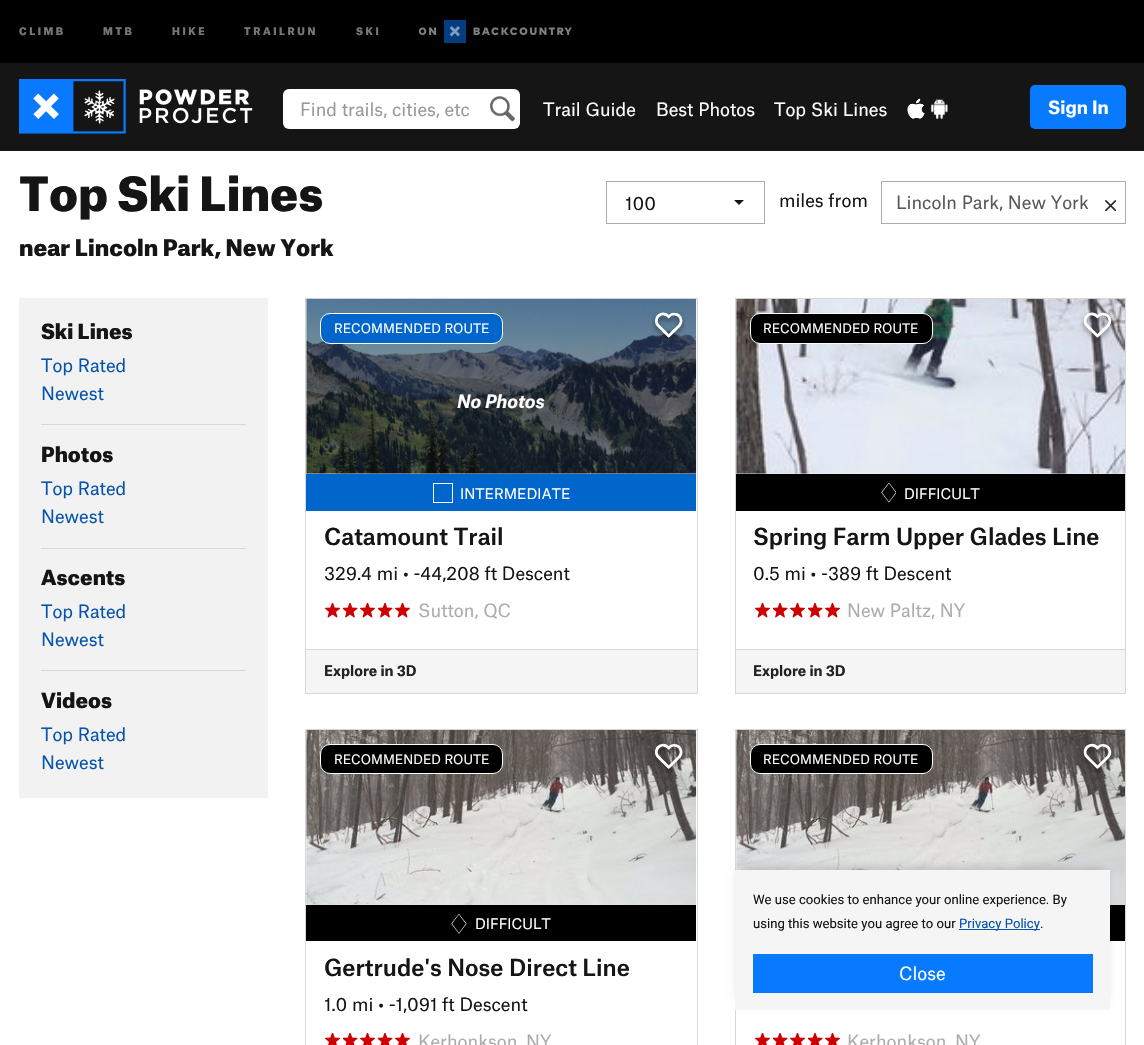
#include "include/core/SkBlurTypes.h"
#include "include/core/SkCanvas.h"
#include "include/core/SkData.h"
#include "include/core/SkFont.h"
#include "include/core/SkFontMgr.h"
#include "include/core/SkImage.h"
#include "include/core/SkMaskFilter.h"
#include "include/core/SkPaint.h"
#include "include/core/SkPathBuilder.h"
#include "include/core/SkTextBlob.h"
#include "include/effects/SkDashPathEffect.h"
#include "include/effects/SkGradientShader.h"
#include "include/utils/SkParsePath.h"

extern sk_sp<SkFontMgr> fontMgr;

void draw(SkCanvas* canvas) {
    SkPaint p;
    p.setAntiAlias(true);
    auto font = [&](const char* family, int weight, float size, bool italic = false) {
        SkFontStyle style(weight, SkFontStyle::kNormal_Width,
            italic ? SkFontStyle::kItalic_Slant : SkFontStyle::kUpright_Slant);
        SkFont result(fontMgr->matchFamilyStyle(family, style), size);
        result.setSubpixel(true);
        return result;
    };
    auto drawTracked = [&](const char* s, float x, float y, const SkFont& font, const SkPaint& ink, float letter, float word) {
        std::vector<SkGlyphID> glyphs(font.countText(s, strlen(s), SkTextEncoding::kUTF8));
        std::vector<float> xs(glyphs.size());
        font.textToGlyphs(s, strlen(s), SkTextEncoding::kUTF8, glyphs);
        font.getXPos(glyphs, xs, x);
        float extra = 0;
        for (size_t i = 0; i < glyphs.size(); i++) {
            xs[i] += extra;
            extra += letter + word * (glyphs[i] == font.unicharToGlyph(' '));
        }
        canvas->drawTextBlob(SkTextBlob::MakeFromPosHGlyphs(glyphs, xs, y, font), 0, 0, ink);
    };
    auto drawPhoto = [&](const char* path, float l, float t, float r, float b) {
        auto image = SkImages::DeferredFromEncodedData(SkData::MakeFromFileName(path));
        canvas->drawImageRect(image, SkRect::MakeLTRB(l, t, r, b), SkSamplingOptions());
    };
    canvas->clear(0xFFFFFFFF);
    p.setColor(0xFF151515);
    canvas->drawRect(SkRect::MakeLTRB(0, 63, 1144, 151), p);
    p.setColor(0xFF000000);
    canvas->drawRect(SkRect::MakeLTRB(0, 0, 1144, 63), p);
    auto font1 = font("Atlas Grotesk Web", 900, 10);
    p.setColor(0xFF777777);
    {
        const struct { const char* s; float x, y; } items[] = {
            {"CLIMB", 19, 35},
            {"MTB", 103, 35},
            {"HIKE", 172, 35},
            {"TRAILRUN", 244, 35},
            {"SKI", 356, 35},
        };
        for (auto [s, x, y] : items) {
            drawTracked(s, x, y, font1, p, 2.5f, 0);
        }
    }
    drawPhoto("media/1.png", 419, 20, 572, 43);
    drawPhoto("media/2.png", 19, 79, 253, 134);
    p.setColor(0xFFFFFFFF);
    canvas->drawRoundRect(SkRect::MakeLTRB(283, 89, 520, 129), 6, 6, p);
    drawPhoto("media/3.png", 490, 96, 515, 122);
    auto font2 = font("Atlas Grotesk Web", 400, 17.5f);
    p.setColor(0xFF999999);
    canvas->drawString("Find trails, cities, etc", 300, 116, font2, p);
    p.setColor(0xFFFFFFFF);
    {
        const struct { const char* s; float x, y; } items[] = {
            {"Trail Guide", 543, 116},
            {"Best Photos", 656, 116},
            {"Top Ski Lines", 774, 116},
        };
        for (auto [s, x, y] : items) {
            canvas->drawString(s, x, y, font2, p);
        }
    }
    drawPhoto("media/4.png", 907, 98, 925, 119);
    drawPhoto("media/5.png", 931, 98, 948, 119);
    p.setColor(0xFF087AFF);
    canvas->drawRoundRect(SkRect::MakeLTRB(1030, 85, 1126, 129), 5, 5, p);
    auto font3 = font("Atlas Grotesk Web", 700, 17.5f);
    p.setColor(0xFFFFFFFF);
    canvas->drawString("Sign In", 1048, 114, font3, p);
    auto font4 = font("Atlas Grotesk Web", 900, 45);
    p.setColor(0xFF151515);
    canvas->drawString("Top Ski Lines", 19, 211, font4, p);
    auto font5 = font("Atlas Grotesk Web", 900, 21.9f);
    canvas->drawString("near Lincoln Park, New York", 19, 256, font5, p);
    p.setStyle(SkPaint::kStroke_Style);
    p.setStrokeWidth(1);
    p.setColor(0xFFACACAC);
    canvas->drawRect(SkRect::MakeLTRB(606.5f, 181.5f, 764.5f, 223.5f), p);
    p.setStyle(SkPaint::kFill_Style);
    p.setColor(0xFF151515);
    canvas->drawString("100", 625, 210, font2, p);
    canvas->drawPath(SkPathBuilder().moveTo(734, 200).lineTo(744, 200).lineTo(739, 205).close().detach(), p);
    canvas->drawString("miles from", 779, 207, font2, p);
    p.setStyle(SkPaint::kStroke_Style);
    p.setColor(0xFFACACAC);
    canvas->drawRect(SkRect::MakeLTRB(881.5f, 181.5f, 1125.5f, 223.5f), p);
    p.setStyle(SkPaint::kFill_Style);
    p.setColor(0xFF55595C);
    canvas->drawString("Lincoln Park, New York", 896, 209, font2, p);
    drawPhoto("media/6.png", 1105, 200, 1116, 211);
    p.setColor(0xFFF2F2F2);
    canvas->drawRect(SkRect::MakeLTRB(19, 298, 268, 798), p);
    auto font6 = font("Atlas Grotesk Web", 900, 20);
    p.setColor(0xFF151515);
    canvas->drawString("Ski Lines", 41, 339, font6, p);
    p.setColor(0xFF0553AD);
    canvas->drawString("Top Rated", 41, 372, font2, p);
    canvas->drawString("Newest", 41, 400, font2, p);
    p.setColor(0xFFD7D7D7);
    canvas->drawRect(SkRect::MakeLTRB(41, 424, 246, 425), p);
    p.setColor(0xFF151515);
    canvas->drawString("Photos", 41, 462, font6, p);
    p.setColor(0xFF0553AD);
    canvas->drawString("Top Rated", 41, 495, font2, p);
    canvas->drawString("Newest", 41, 523, font2, p);
    p.setColor(0xFFD7D7D7);
    canvas->drawRect(SkRect::MakeLTRB(41, 548, 246, 549), p);
    p.setColor(0xFF151515);
    canvas->drawString("Ascents", 41, 585, font6, p);
    p.setColor(0xFF0553AD);
    canvas->drawString("Top Rated", 41, 618, font2, p);
    canvas->drawString("Newest", 41, 646, font2, p);
    p.setColor(0xFFD7D7D7);
    canvas->drawRect(SkRect::MakeLTRB(41, 670, 246, 671), p);
    p.setColor(0xFF151515);
    canvas->drawString("Videos", 41, 708, font6, p);
    p.setColor(0xFF0553AD);
    canvas->drawString("Top Rated", 41, 741, font2, p);
    canvas->drawString("Newest", 41, 769, font2, p);
    p.setColor(0xFFF5F5F5);
    canvas->drawRect(SkRect::MakeLTRB(306, 650, 697, 693), p);
    p.setStyle(SkPaint::kStroke_Style);
    p.setColor(0xFFD7D7D7);
    canvas->drawRect(SkRect::MakeLTRB(305.5f, 646.5f, 697.5f, 693.5f), p);
    p.setStyle(SkPaint::kFill_Style);
    p.setColor(0xFFFFFFFF);
    canvas->drawRect(SkRect::MakeLTRB(306, 646, 697, 647), p);
    p.setStyle(SkPaint::kStroke_Style);
    p.setColor(0xFFD7D7D7);
    canvas->drawRect(SkRect::MakeLTRB(305.5f, 298.5f, 697.5f, 649.5f), p);
    p.setStyle(SkPaint::kFill_Style);
    {
        const SkColor colors[] = {0xFFF2F2F2, 0xFFE5E5E5, 0xFFF2F2F2, 0xFFF2F2F2};
        const float stops[] = {0, 0.2f, 0.4f, 1};
        const SkPoint ends[] = {{306, 386}, {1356, 386}};
        p.setShader(SkGradientShader::MakeLinear(ends, colors, stops, 4, SkTileMode::kClamp));
        p.setAlpha(255);
    }
    canvas->drawRect(SkRect::MakeLTRB(306, 299, 696, 474), p);
    drawPhoto("media/7.png", 306, 298, 697, 474);
    p.setShader(nullptr);
    p.setColor(0xFF0066CC);
    canvas->drawRoundRect(SkRect::MakeLTRB(320.5f, 313.5f, 502.5f, 343.5f), 9.5f, 9.5f, p);
    p.setStyle(SkPaint::kStroke_Style);
    p.setColor(0xFFFFFFFF);
    canvas->drawRoundRect(SkRect::MakeLTRB(320.5f, 313.5f, 502.5f, 343.5f), 9.5f, 9.5f, p);
    auto font7 = font("Atlas Grotesk Web", 400, 12.5f);
    p.setStyle(SkPaint::kFill_Style);
    canvas->drawString("RECOMMENDED ROUTE", 334, 333, font7, p);
    drawPhoto("media/8.png", 652, 312, 686, 342);
    auto font8 = font("Atlas Grotesk Web", 700, 17.5f, true);
    canvas->drawString("No Photos", 457, 408, font8, p);
    {
        const struct { float l, t, r, b; SkColor color; } items[] = {
            {306, 474, 696, 511, 0xFF0066CC},
            {433, 483, 453, 503, 0xFFFFFFFF},
            {434, 484, 452, 502, 0xFF0066CC},
        };
        for (auto [l, t, r, b, color] : items) {
            p.setColor(color);
            canvas->drawRect(SkRect::MakeLTRB(l, t, r, b), p);
        }
    }
    auto font9 = font("Atlas Grotesk Web", 400, 14);
    p.setColor(0xFFFFFFFF);
    canvas->drawString("INTERMEDIATE", 460, 499, font9, p);
    auto font10 = font("Atlas Grotesk Web", 500, 22.5f);
    p.setColor(0xFF151515);
    canvas->drawString("Catamount Trail", 324, 545, font10, p);
    canvas->drawString("329.4 mi • -44,208 ft Descent", 324, 580, font2, p);
    drawPhoto("media/9.png", 325, 603, 340, 618);
    drawPhoto("media/10.png", 343, 603, 358, 618);
    drawPhoto("media/9.png", 360, 603, 375, 618);
    drawPhoto("media/10.png", 378, 603, 393, 618);
    drawPhoto("media/9.png", 395, 603, 410, 618);
    p.setColor(0xFFACACAC);
    canvas->drawString("Sutton, QC", 418, 617, font2, p);
    auto font11 = font("Atlas Grotesk Web", 700, 14);
    p.setColor(0xFF222222);
    canvas->drawString("Explore in 3D", 324, 676, font11, p);
    p.setColor(0xFFF5F5F5);
    canvas->drawRect(SkRect::MakeLTRB(736, 650, 1125, 693), p);
    p.setStyle(SkPaint::kStroke_Style);
    p.setColor(0xFFD7D7D7);
    canvas->drawRect(SkRect::MakeLTRB(735.5f, 646.5f, 1125.5f, 693.5f), p);
    p.setStyle(SkPaint::kFill_Style);
    p.setColor(0xFFFFFFFF);
    canvas->drawRect(SkRect::MakeLTRB(736, 646, 1125, 647), p);
    p.setStyle(SkPaint::kStroke_Style);
    p.setColor(0xFFD7D7D7);
    canvas->drawRect(SkRect::MakeLTRB(735.5f, 298.5f, 1125.5f, 649.5f), p);
    p.setStyle(SkPaint::kFill_Style);
    p.setColor(0xFFF2F2F2);
    canvas->drawRect(SkRect::MakeLTRB(736, 299, 1125, 474), p);
    drawPhoto("media/11.png", 736, 298, 1125, 474);
    p.setColor(0xFF000000);
    canvas->drawRoundRect(SkRect::MakeLTRB(750.5f, 313.5f, 932.5f, 343.5f), 9.5f, 9.5f, p);
    p.setStyle(SkPaint::kStroke_Style);
    p.setColor(0xFFFFFFFF);
    canvas->drawRoundRect(SkRect::MakeLTRB(750.5f, 313.5f, 932.5f, 343.5f), 9.5f, 9.5f, p);
    p.setStyle(SkPaint::kFill_Style);
    canvas->drawString("RECOMMENDED ROUTE", 763, 333, font7, p);
    drawPhoto("media/12.png", 1080, 312, 1115, 342);
    p.setColor(0xFF000000);
    canvas->drawRect(SkRect::MakeLTRB(736, 474, 1125, 511), p);
    drawPhoto("media/13.png", 881, 483, 896, 503);
    p.setColor(0xFFFFFFFF);
    canvas->drawString("DIFFICULT", 904, 499, font9, p);
    p.setColor(0xFF151515);
    canvas->drawString("Spring Farm Upper Glades Line", 753, 545, font10, p);
    canvas->drawString("0.5 mi • -389 ft Descent", 753, 580, font2, p);
    drawPhoto("media/9.png", 755, 603, 770, 618);
    drawPhoto("media/10.png", 773, 603, 788, 618);
    drawPhoto("media/9.png", 790, 603, 805, 618);
    drawPhoto("media/10.png", 808, 603, 823, 618);
    drawPhoto("media/9.png", 825, 603, 840, 618);
    p.setColor(0xFFACACAC);
    canvas->drawString("New Paltz, NY", 847, 617, font2, p);
    p.setColor(0xFF222222);
    canvas->drawString("Explore in 3D", 753, 676, font11, p);
    p.setStyle(SkPaint::kStroke_Style);
    p.setColor(0xFFD7D7D7);
    canvas->drawRect(SkRect::MakeLTRB(305.5f, 729.5f, 697.5f, 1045.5f), p);
    p.setStyle(SkPaint::kFill_Style);
    p.setColor(0xFFF2F2F2);
    canvas->drawRect(SkRect::MakeLTRB(306, 730, 307, 905), p);
    drawPhoto("media/14.png", 306, 730, 697, 905);
    p.setColor(0xFF000000);
    canvas->drawRoundRect(SkRect::MakeLTRB(320.5f, 744.5f, 502.5f, 773.5f), 9.5f, 9.5f, p);
    p.setStyle(SkPaint::kStroke_Style);
    p.setColor(0xFFFFFFFF);
    canvas->drawRoundRect(SkRect::MakeLTRB(320.5f, 744.5f, 502.5f, 773.5f), 9.5f, 9.5f, p);
    p.setStyle(SkPaint::kFill_Style);
    canvas->drawString("RECOMMENDED ROUTE", 334, 764, font7, p);
    drawPhoto("media/15.png", 652, 743, 686, 773);
    p.setColor(0xFF000000);
    canvas->drawRect(SkRect::MakeLTRB(306, 905, 696, 941), p);
    drawPhoto("media/16.png", 451, 914, 467, 934);
    p.setColor(0xFFFFFFFF);
    canvas->drawString("DIFFICULT", 475, 929, font9, p);
    p.setColor(0xFF151515);
    canvas->drawString("Gertrude's Nose Direct Line", 324, 976, font10, p);
    canvas->drawString("1.0 mi • -1,091 ft Descent", 324, 1011, font2, p);
    drawPhoto("media/17.png", 325, 1033, 340, 1045);
    drawPhoto("media/18.png", 343, 1033, 358, 1045);
    drawPhoto("media/17.png", 360, 1033, 375, 1045);
    drawPhoto("media/18.png", 378, 1033, 393, 1045);
    drawPhoto("media/17.png", 395, 1033, 410, 1045);
    p.setColor(0xFFACACAC);
    canvas->drawString("Kerhonkson, NY", 418, 1048, font2, p);
    p.setStyle(SkPaint::kStroke_Style);
    p.setColor(0xFFD7D7D7);
    canvas->drawRect(SkRect::MakeLTRB(735.5f, 729.5f, 1125.5f, 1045.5f), p);
    p.setStyle(SkPaint::kFill_Style);
    p.setColor(0xFFF2F2F2);
    canvas->drawRect(SkRect::MakeLTRB(736, 730, 737, 870), p);
    drawPhoto("media/19.png", 736, 730, 1125, 905);
    p.setColor(0xFF000000);
    canvas->drawRoundRect(SkRect::MakeLTRB(750.5f, 744.5f, 932.5f, 773.5f), 9.5f, 9.5f, p);
    p.setStyle(SkPaint::kStroke_Style);
    p.setColor(0xFFFFFFFF);
    canvas->drawRoundRect(SkRect::MakeLTRB(750.5f, 744.5f, 932.5f, 773.5f), 9.5f, 9.5f, p);
    p.setStyle(SkPaint::kFill_Style);
    canvas->drawString("RECOMMENDED ROUTE", 763, 764, font7, p);
    drawPhoto("media/20.png", 1081, 743, 1115, 773);
    p.setColor(0xFF000000);
    canvas->drawRect(SkRect::MakeLTRB(1110, 905, 1125, 941), p);
    drawPhoto("media/17.png", 755, 1033, 770, 1045);
    drawPhoto("media/18.png", 773, 1033, 788, 1045);
    drawPhoto("media/17.png", 790, 1033, 805, 1045);
    drawPhoto("media/18.png", 808, 1033, 823, 1045);
    drawPhoto("media/17.png", 825, 1033, 840, 1045);
    p.setColor(0xFFACACAC);
    canvas->drawString("Kerhonkson, NY", 847, 1048, font2, p);
    p.setColor(0x40000000);
    p.setMaskFilter(SkMaskFilter::MakeBlur(kNormal_SkBlurStyle, 6));
    canvas->drawRect(SkRect::MakeLTRB(741, 870, 1104, 998), p);
    p.setMaskFilter(nullptr);
    p.setColor(0xFFF5F5F5);
    canvas->drawRect(SkRect::MakeLTRB(735, 870, 1110, 1010), p);
    auto font12 = font("Roboto", 400, 13.1f);
    p.setColor(0xFF151515);
    canvas->drawString("We use cookies to enhance your online experience. By", 753, 904, font12, p);
    canvas->drawString("using this website you agree to our", 753, 928, font12, p);
    p.setColor(0xFF0553AD);
    canvas->drawRect(SkRect::MakeLTRB(959, 929, 1040, 930), p);
    canvas->drawString("Privacy Policy", 959, 928, font12, p);
    p.setColor(0xFF151515);
    canvas->drawString(".", 1040, 928, font12, p);
    p.setColor(0xFF087AFF);
    canvas->drawRect(SkRect::MakeLTRB(753, 954, 1093, 993), p);
    p.setColor(0xFFFFFFFF);
    canvas->drawString("Close", 899, 980, font2, p);
}
